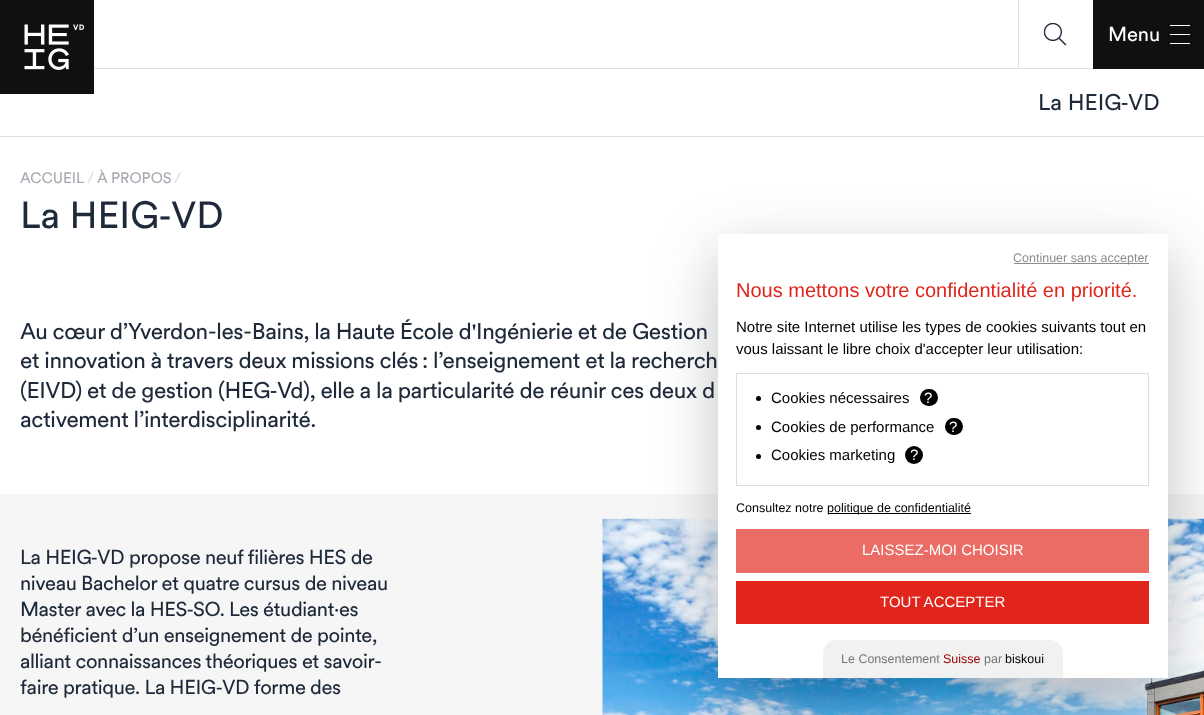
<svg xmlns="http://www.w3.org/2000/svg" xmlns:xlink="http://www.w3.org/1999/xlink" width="1204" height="715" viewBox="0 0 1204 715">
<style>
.cls-1{font:20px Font;fill:#ffffff}
.cls-2{font:22.5px Font;fill:#1e2939}
.cls-3{font:22.5px Noto Sans;fill:#1e2939}
.cls-4{font:15px Font;fill:#a5a9b0}
.cls-5{font:15px Font;fill:#dbdddf}
.cls-6{font:37.5px Font;fill:#1e2939}
.cls-7{font:37.5px Noto Sans;fill:#1e2939}
.cls-8{font:22.5px Font;letter-spacing:-0.45px;fill:#1e2939}
.cls-9{font:22.5px Noto Sans;letter-spacing:-0.45px;fill:#1e2939}
.cls-10{font:20px Font;letter-spacing:-0.4px;fill:#1e2939}
.cls-11{font:20px Noto Sans;letter-spacing:-0.4px;fill:#1e2939}
.cls-12{font:12.5px Liberation Sans;fill:#8c8c8c}
.cls-13{font:20px Liberation Sans;fill:#e1251b}
.cls-14{font:15px Liberation Sans;fill:#000000}
.cls-15{font:15px Liberation Sans;fill:#ffffff}
.cls-16{font:12.5px Liberation Sans;fill:#000000}
.cls-17{font:12.5px Liberation Sans;fill:#767676}
.cls-18{font:12.5px Liberation Sans;fill:#9c0000}
</style>
<rect width="100%" height="100%" fill="#f6f6f6"/>
<rect fill="#ffffff" x="94" y="0" width="999" height="68"/>
<rect fill="#e0e0e0" x="94" y="68" width="999" height="1"/>
<rect fill="#ffffff" x="0" y="69" width="1204" height="425"/>
<image xlink:href="image0.png" x="0" y="0" width="94" height="94"/>
<rect fill="#e0e0e0" x="1018" y="0" width="1" height="69"/>
<image xlink:href="image1.png" x="1044" y="23" width="23" height="23"/>
<rect fill="#101010" x="1093" y="0" width="111" height="69"/>
<rect fill="#ffffff" x="1170" y="34" width="20" height="1"/>
<rect fill="#ffffff" x="1170" y="25" width="20" height="1"/>
<rect fill="#ffffff" x="1170" y="43" width="20" height="1"/>
<rect fill="#e0e0e0" x="0" y="136" width="1204" height="1"/>
<image xlink:href="image2.png" x="602" y="518" width="602" height="197"/>
<rect fill="#212529" fill-opacity="0.28" filter="blur(30px)" x="718" y="254" width="450" height="444"/>
<rect fill="#ffffff" x="718" y="234" width="450" height="444"/>
<rect fill="#8c8c8c" x="1014" y="263" width="135" height="1"/>
<rect fill="none" stroke="#dddddd" x="736.5" y="373.5" width="412" height="112"/>
<circle fill="#000000" cx="758.5" cy="398.5" r="2.5"/>
<rect fill="#000000" x="920" y="389" width="18" height="17" rx="8.5"/>
<circle fill="#000000" cx="758.5" cy="427.5" r="2.5"/>
<rect fill="#000000" x="945" y="418" width="18" height="17" rx="8.5"/>
<circle fill="#000000" cx="758.5" cy="456.5" r="2.5"/>
<circle fill="#000000" cx="914" cy="455" r="9"/>
<rect fill="#000000" x="828" y="513" width="143" height="1"/>
<rect fill="#eb6c65" x="736" y="529" width="413" height="44"/>
<rect fill="#e1251b" x="736" y="581" width="413" height="43"/>
<path fill="#f1f1f1" d="M836 640H1050C1057 640 1063 646 1063 653V678H823V653C823 646 829 640 836 640Z"/>
<text class="cls-1" x="1108" y="41">Menu</text>
<text class="cls-2" x="1038" y="110">La HEIG</text>
<text class="cls-3" x="1121" y="110">‑</text>
<text class="cls-2" x="1128" y="110">VD</text>
<text class="cls-4" x="20" y="183">ACCUEIL</text>
<text class="cls-5" x="87" y="183">/</text>
<text class="cls-4" x="97" y="183">À PROPOS</text>
<text class="cls-5" x="174" y="183">/</text>
<text class="cls-6" x="20" y="228">La HEIG</text>
<text class="cls-7" x="159" y="228">‑</text>
<text class="cls-6" x="171" y="228">VD</text>
<text class="cls-8"><tspan x="20" y="339">Au cœur d’Yverdon-les-Bains, la Haute École d'Ingénierie et de Gestion</tspan><tspan x="20" y="368">et innovation à travers deux missions clés</tspan></text>
<text class="cls-8" x="422" y="368">: l’enseignement et la recherch</text>
<text class="cls-8" x="20" y="398">(EIVD) et de gestion (HEG</text>
<text class="cls-9" x="270" y="398">‑</text>
<text class="cls-8" x="277" y="398">Vd), elle a la particularité de réunir ces deux d</text>
<text class="cls-8" x="20" y="427">activement l’interdisciplinarité.</text>
<text class="cls-10" x="20" y="564">La HEIG</text>
<text class="cls-11" x="91" y="564">‑</text>
<text class="cls-10" x="97" y="564">VD propose neuf filières HES de</text>
<text class="cls-10"><tspan x="20" y="590">niveau Bachelor et quatre cursus de niveau</tspan><tspan x="20" y="616">Master avec la HES</tspan></text>
<text class="cls-11" x="187" y="616">‑</text>
<text class="cls-10" x="193" y="616">SO. Les étudiant·es</text>
<text class="cls-10"><tspan x="20" y="642">bénéficient d’un enseignement de pointe,</tspan><tspan x="20" y="668">alliant connaissances théoriques et savoir-</tspan><tspan x="20" y="694">faire pratique. La HEIG</tspan></text>
<text class="cls-11" x="216" y="694">‑</text>
<text class="cls-10" x="222" y="694">VD forme des</text>
<text class="cls-12" x="1013" y="262">Continuer sans accepter</text>
<text class="cls-13" x="736" y="297">Nous mettons votre confidentialité en priorité.</text>
<text class="cls-14"><tspan x="736" y="332">Notre site Internet utilise les types de cookies suivants tout en</tspan><tspan x="736" y="354">vous laissant le libre choix d'accepter leur utilisation:</tspan></text>
<text class="cls-14" x="771" y="403">Cookies nécessaires</text>
<text class="cls-15" x="924" y="403">?</text>
<text class="cls-14" x="771" y="432">Cookies de performance</text>
<text class="cls-15" x="949" y="432">?</text>
<text class="cls-14" x="771" y="460">Cookies marketing</text>
<text class="cls-15" x="910" y="460">?</text>
<text class="cls-16" x="736" y="512">Consultez notre</text>
<text class="cls-16" x="827" y="512">politique de confidentialité</text>
<text class="cls-15" x="862" y="555">LAISSEZ-MOI CHOISIR</text>
<text class="cls-15" x="880" y="607">TOUT ACCEPTER</text>
<text class="cls-17" x="841" y="663">Le Consentement</text>
<text class="cls-18" x="943" y="663">Suisse</text>
<text class="cls-17" x="984" y="663">par</text>
<text class="cls-16" x="1005" y="663">biskoui</text>
</svg>
